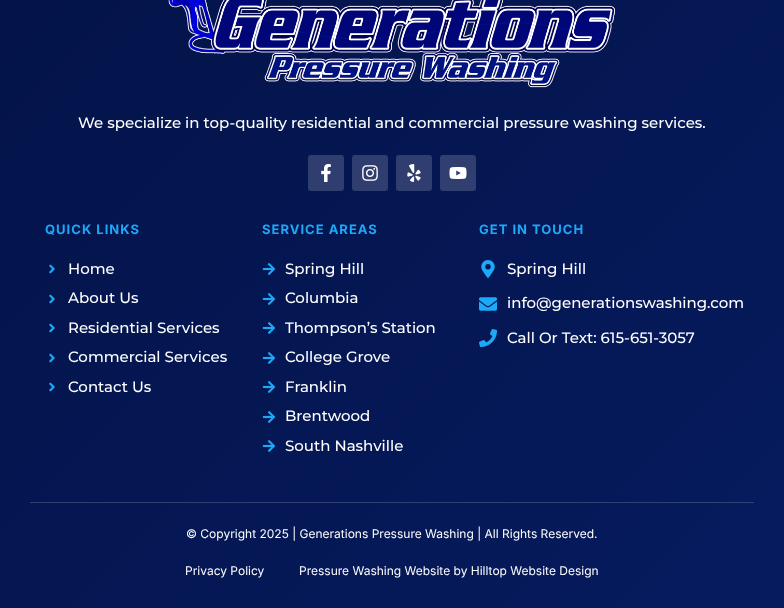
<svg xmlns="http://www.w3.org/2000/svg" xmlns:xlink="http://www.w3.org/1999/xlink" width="784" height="608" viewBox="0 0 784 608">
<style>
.cls-1{font:500 15px Montserrat;fill:#ffffff}
.cls-2{font:bold 13px Inter;letter-spacing:1px;fill:#1da8f8}
.cls-3{font:12px Inter;fill:#ffffff}
</style>
<defs>
<linearGradient id="g1" gradientUnits="userSpaceOnUse" x1="-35" y1="-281" x2="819" y2="573"><stop offset="0" stop-color="#031245"/><stop offset="1" stop-color="#061b5e"/></linearGradient>
<linearGradient id="g2" gradientUnits="userSpaceOnUse" x1="-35" y1="-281" x2="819" y2="573"><stop offset="0" stop-color="#2e3a65"/><stop offset="1" stop-color="#304279"/></linearGradient>
</defs>
<rect width="100%" height="100%" fill="#ffffff"/>
<rect fill="url(#g1)" x="0" y="0" width="784" height="608"/>
<rect fill="url(#g2)" x="30" y="502" width="724" height="1"/>
<image xlink:href="image0.png" x="168" y="0" width="447" height="88"/>
<rect fill="#2f3e6f" x="308" y="155" width="36" height="36" rx="3"/>
<image xlink:href="image1.png" x="321" y="164" width="10" height="18"/>
<rect fill="#2f3e6f" x="352" y="155" width="36" height="36" rx="3"/>
<image xlink:href="image2.png" x="362" y="165" width="16" height="16"/>
<rect fill="#303e6f" x="396" y="155" width="36" height="36" rx="3"/>
<image xlink:href="image3.png" x="407" y="164" width="14" height="18"/>
<rect fill="#303e70" x="440" y="155" width="36" height="36" rx="3"/>
<image xlink:href="image4.png" x="449" y="167" width="18" height="12"/>
<image xlink:href="image5.png" x="49" y="264" width="6" height="10"/>
<image xlink:href="image6.png" x="49" y="294" width="6" height="10"/>
<image xlink:href="image7.png" x="49" y="323" width="6" height="10"/>
<image xlink:href="image8.png" x="49" y="353" width="6" height="10"/>
<image xlink:href="image8.png" x="49" y="382" width="6" height="10"/>
<image xlink:href="image9.png" x="262" y="263" width="13" height="12"/>
<image xlink:href="image10.png" x="262" y="293" width="13" height="12"/>
<image xlink:href="image11.png" x="262" y="322" width="13" height="12"/>
<image xlink:href="image12.png" x="262" y="352" width="13" height="12"/>
<image xlink:href="image12.png" x="262" y="381" width="13" height="12"/>
<image xlink:href="image13.png" x="262" y="411" width="13" height="12"/>
<image xlink:href="image14.png" x="262" y="440" width="13" height="12"/>
<image xlink:href="image15.png" x="481" y="260" width="14" height="18"/>
<image xlink:href="image16.png" x="479" y="297" width="18" height="14"/>
<image xlink:href="image17.png" x="479" y="329" width="18" height="18"/>
<text class="cls-1" x="78" y="128">We specialize in top-quality residential and commercial pressure washing services.</text>
<text class="cls-2" x="45" y="234">QUICK LINKS</text>
<text class="cls-1"><tspan x="68" y="274">Home</tspan><tspan x="68" y="303">About Us</tspan></text>
<text class="cls-1"><tspan x="68" y="333">Residential Services</tspan><tspan x="68" y="362">Commercial Services</tspan></text>
<text class="cls-1" x="68" y="392">Contact Us</text>
<text class="cls-2" x="262" y="234">SERVICE AREAS</text>
<text class="cls-1"><tspan x="285" y="274">Spring Hill</tspan><tspan x="285" y="303">Columbia</tspan></text>
<text class="cls-1"><tspan x="285" y="333">Thompson’s Station</tspan><tspan x="285" y="362">College Grove</tspan></text>
<text class="cls-1"><tspan x="285" y="392">Franklin</tspan><tspan x="285" y="421">Brentwood</tspan></text>
<text class="cls-1" x="285" y="451">South Nashville</text>
<text class="cls-2" x="479" y="234">GET IN TOUCH</text>
<text class="cls-1" x="507" y="274">Spring Hill</text>
<text class="cls-1" x="507" y="308">info@generationswashing.com</text>
<text class="cls-1" x="507" y="343">Call Or Text: 615-651-3057</text>
<text class="cls-3" x="186" y="538">© Copyright 2025 | Generations Pressure Washing | All Rights Reserved.</text>
<text class="cls-3" x="185" y="575">Privacy Policy</text>
<text class="cls-3" x="299" y="575">Pressure Washing Website by Hilltop Website Design</text>
</svg>
